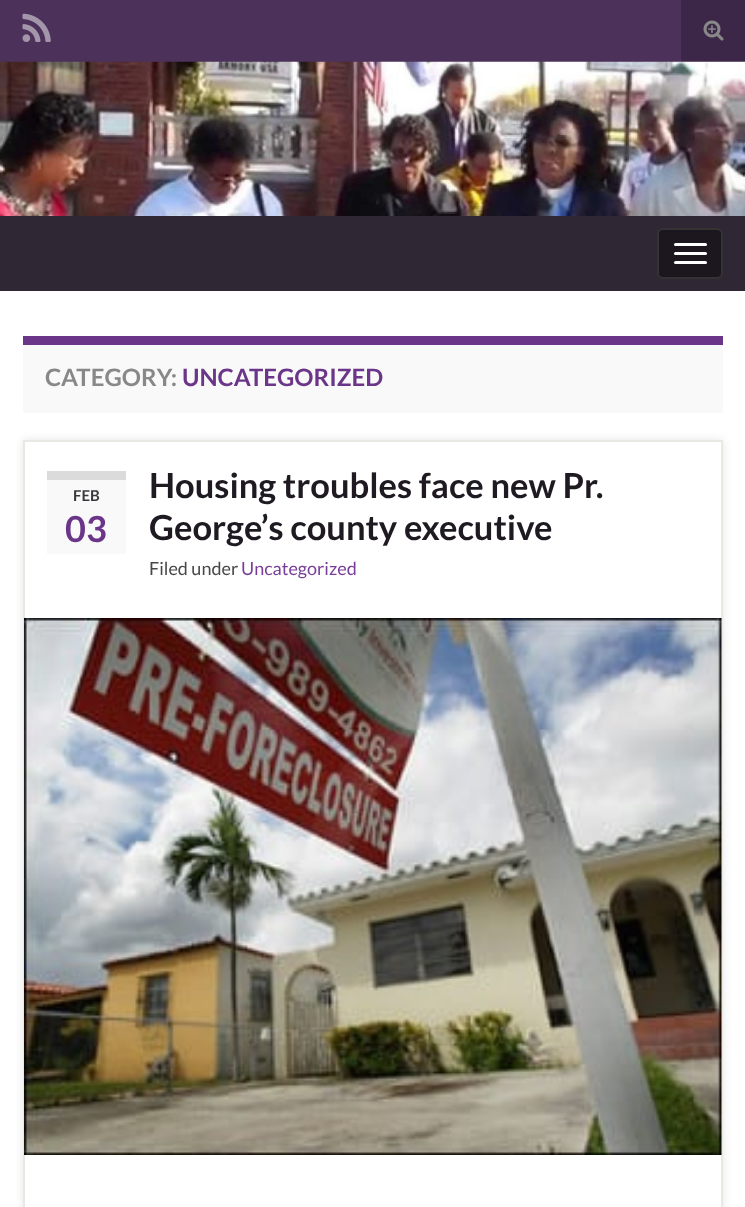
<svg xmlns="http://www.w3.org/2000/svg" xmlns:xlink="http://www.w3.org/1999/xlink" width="745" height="1207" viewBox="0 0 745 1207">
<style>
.cls-1{font:bold 24px Lato;fill:#888888}
.cls-2{font:bold 24px Lato;fill:#6b3589}
.cls-3{font:bold 15px Lato;fill:#3b383d}
.cls-4{font:bold 36px Lato;fill:#6b3589}
.cls-5{font:bold 34.5px Lato;fill:#1f1a22}
.cls-6{font:18px Lato;fill:#4a474b}
.cls-7{font:18px Lato;fill:#783d98}
</style>
<defs>
<clipPath id="clip1"><path d="M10 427H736V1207H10ZM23 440H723V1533H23Z" clip-rule="evenodd"/></clipPath>
</defs>
<rect width="100%" height="100%" fill="#ffffff"/>
<rect fill="#4c315a" x="0" y="0" width="681" height="62"/>
<image xlink:href="image0.png" x="22" y="13" width="29" height="29"/>
<rect fill="#3d2748" x="681" y="0" width="64" height="62"/>
<image xlink:href="image1.png" x="703" y="20" width="21" height="21"/>
<image xlink:href="image2.png" x="0" y="61" width="745" height="155"/>
<rect fill="#2f2733" x="0" y="216" width="745" height="75"/>
<rect fill="#1c171f" stroke="#333333" stroke-width="2" x="658" y="229" width="64" height="49" rx="5"/>
<rect fill="#ffffff" x="674" y="243" width="33" height="3" rx="1.5"/>
<rect fill="#ffffff" x="674" y="252" width="33" height="3" rx="1.5"/>
<rect fill="#ffffff" x="674" y="261" width="33" height="3" rx="1.5"/>
<rect fill="#f9f9f9" x="23" y="345" width="700" height="68"/>
<rect fill="#6b3589" x="23" y="336" width="700" height="9"/>
<g clip-path="url(#clip1)">
<rect fill="#000000" fill-opacity="0.1" filter="blur(4px)" x="23" y="440" width="700" height="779"/>
</g>
<rect fill="none" stroke="#e9e8e3" stroke-width="2" x="24" y="441" width="698" height="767"/>
<rect fill="#f9f9f9" x="47" y="480" width="79" height="74"/>
<rect fill="#dbdbdb" x="47" y="471" width="79" height="9"/>
<image xlink:href="image3.png" x="24" y="618" width="698" height="537"/>
<text class="cls-1" x="45" y="386">CATEGORY:</text>
<text class="cls-2" x="182" y="386">UNCATEGORIZED</text>
<text class="cls-3" x="73" y="501">FEB</text>
<text class="cls-4" x="65" y="542">03</text>
<text class="cls-5"><tspan x="149" y="498">Housing troubles face new Pr.</tspan><tspan x="149" y="540">George’s county executive</tspan></text>
<text class="cls-6" x="149" y="575">Filed under</text>
<text class="cls-7" x="241" y="575">Uncategorized</text>
</svg>
